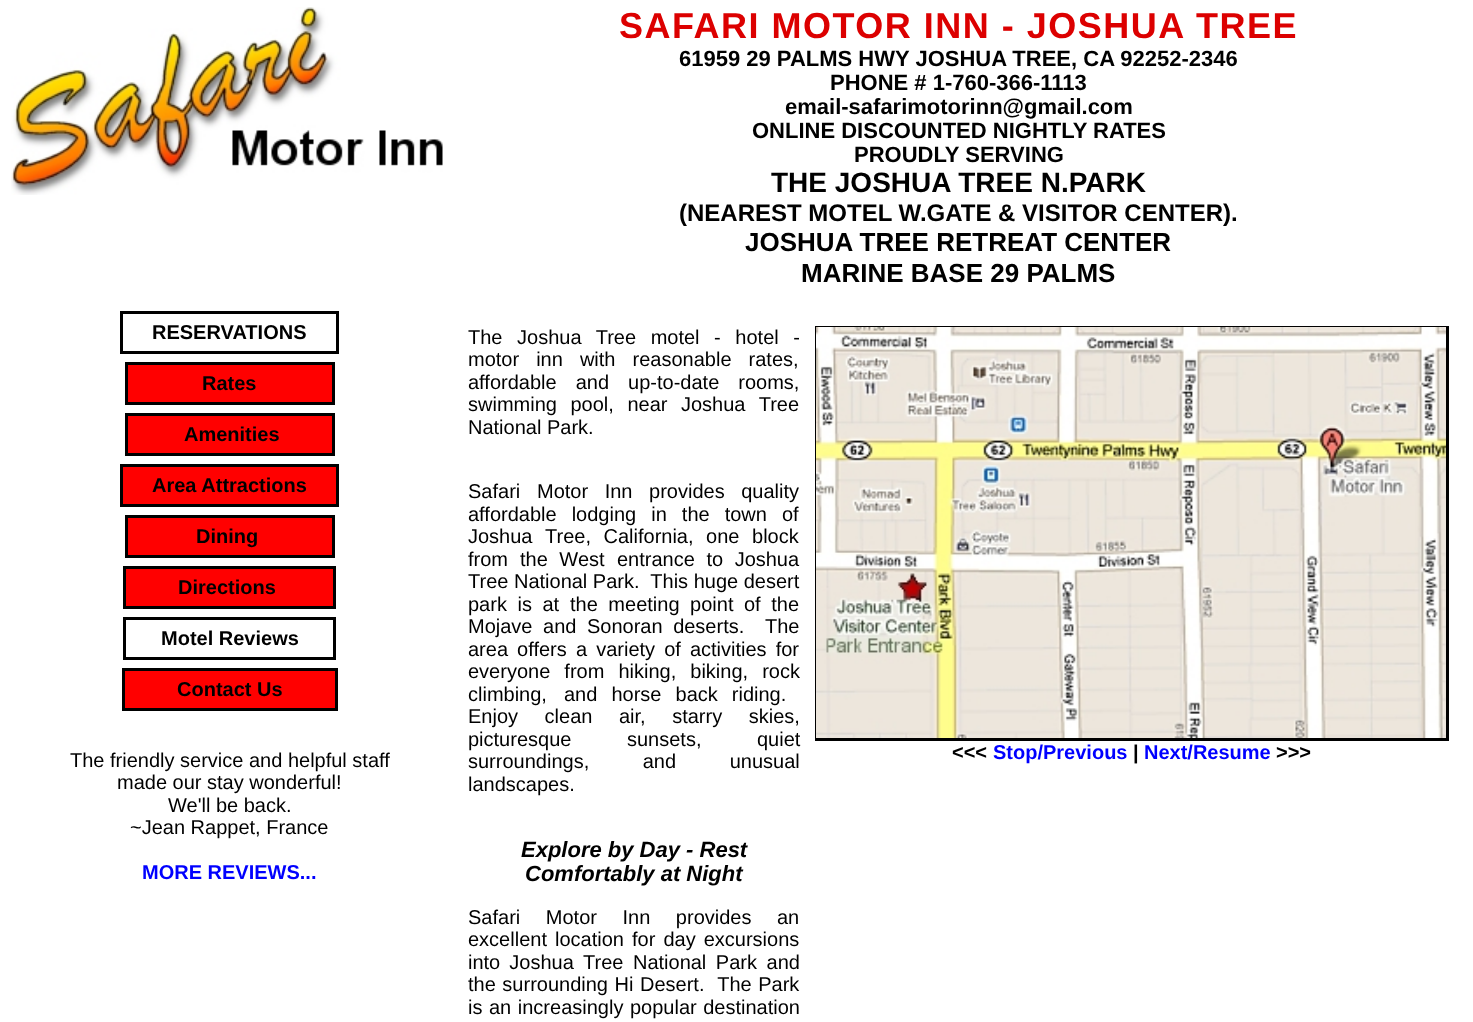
<svg xmlns="http://www.w3.org/2000/svg" xmlns:xlink="http://www.w3.org/1999/xlink" width="1473" height="1022" viewBox="0 0 1473 1022">
<style>
.cls-1{font:bold 36px Liberation Sans;letter-spacing:1.5px;fill:#dc0000}
.cls-2{font:bold 22px Liberation Sans;fill:#000000}
.cls-3{font:bold 28px Liberation Sans;fill:#000000}
.cls-4{font:bold 24px Liberation Sans;fill:#000000}
.cls-5{font:bold 26px Liberation Sans;fill:#000000}
.cls-6{font:bold 20px Liberation Sans;fill:#000000}
.cls-7{font:20px Liberation Sans;fill:#000000}
.cls-8{font:bold 20px Liberation Sans;fill:#0000ff}
.cls-9{font:italic bold 22px Liberation Sans;fill:#000000}
</style>
<rect width="100%" height="100%" fill="#ffffff"/>
<image xlink:href="image0.png" x="11" y="7" width="432" height="188"/>
<rect fill="none" stroke="#000000" stroke-width="3" x="121.5" y="312.5" width="216" height="40"/>
<rect fill="#ff0000" stroke="#000000" stroke-width="3" x="126.5" y="363.5" width="207" height="40"/>
<rect fill="#ff0000" stroke="#000000" stroke-width="3" x="126.5" y="414.5" width="207" height="40"/>
<rect fill="#ff0000" stroke="#000000" stroke-width="3" x="121.5" y="465.5" width="216" height="40"/>
<rect fill="#ff0000" stroke="#000000" stroke-width="3" x="126.5" y="516.5" width="207" height="40"/>
<rect fill="#ff0000" stroke="#000000" stroke-width="3" x="124.5" y="567.5" width="210" height="40"/>
<rect fill="none" stroke="#000000" stroke-width="3" x="124.5" y="618.5" width="210" height="40"/>
<rect fill="#ff0000" stroke="#000000" stroke-width="3" x="123.5" y="669.5" width="213" height="40"/>
<rect fill="#000000" x="815" y="326" width="634" height="1"/>
<rect fill="#000000" x="1446" y="326" width="3" height="415"/>
<rect fill="#000000" x="815" y="738" width="634" height="3"/>
<rect fill="#000000" x="815" y="326" width="2" height="415"/>
<image xlink:href="image1.png" x="816" y="327" width="630" height="411"/>
<text class="cls-1" x="619" y="38">SAFARI MOTOR INN - JOSHUA TREE</text>
<text class="cls-2" x="679" y="66">61959 29 PALMS HWY JOSHUA TREE, CA 92252-2346</text>
<text class="cls-2" x="830" y="90">PHONE # 1-760-366-1113</text>
<text class="cls-2" x="785" y="114">email-safarimotorinn@gmail.com</text>
<text class="cls-2" x="752" y="138">ONLINE DISCOUNTED NIGHTLY RATES</text>
<text class="cls-2" x="854" y="162">PROUDLY SERVING</text>
<text class="cls-3" x="771" y="192">THE JOSHUA TREE N.PARK</text>
<text class="cls-4" x="679" y="221">(NEAREST MOTEL W.GATE &amp; VISITOR CENTER).</text>
<text class="cls-5" x="745" y="251">JOSHUA TREE RETREAT CENTER</text>
<text class="cls-5" x="801" y="282">MARINE BASE 29 PALMS</text>
<text class="cls-6" x="152" y="339">RESERVATIONS</text>
<text class="cls-6" x="202" y="390">Rates</text>
<text class="cls-6" x="184" y="441">Amenities</text>
<text class="cls-6" x="152" y="492">Area Attractions</text>
<text class="cls-6" x="196" y="543">Dining</text>
<text class="cls-6" x="178" y="594">Directions</text>
<text class="cls-6" x="161" y="645">Motel Reviews</text>
<text class="cls-6" x="177" y="696">Contact Us</text>
<text class="cls-7" x="70" y="767">The friendly service and helpful staff</text>
<text class="cls-7" x="117" y="789">made our stay wonderful!</text>
<text class="cls-7" x="168" y="812">We'll be back.</text>
<text class="cls-7" x="130" y="834">~Jean Rappet, France</text>
<text class="cls-8" x="142" y="879">MORE REVIEWS...</text>
<text class="cls-7"><tspan x="468" y="344" word-spacing="9">The Joshua Tree motel - hotel -</tspan><tspan x="468" y="366" word-spacing="11.5">motor inn with reasonable rates,</tspan><tspan x="468" y="389" word-spacing="13.5">affordable and up-to-date rooms,</tspan><tspan x="468" y="411" word-spacing="8">swimming pool, near Joshua Tree</tspan><tspan x="468" y="434">National Park.</tspan></text>
<text class="cls-7" x="468" y="498">Safari</text>
<text class="cls-7" x="537" y="498" word-spacing="11">Motor Inn provides quality</text>
<text class="cls-7"><tspan x="468" y="521" word-spacing="9.5">affordable lodging in the town of</tspan><tspan x="468" y="543">Joshua</tspan></text>
<text class="cls-7" x="545" y="543" word-spacing="7">Tree, California, one block</text>
<text class="cls-7" x="468" y="566">from</text>
<text class="cls-7" x="520" y="566" word-spacing="6">the West</text>
<text class="cls-7" x="617" y="566" word-spacing="6">entrance to Joshua</text>
<text class="cls-7" xml:space="preserve"><tspan x="468" y="588">Tree National Park.  This huge desert</tspan><tspan x="468" y="611" word-spacing="5">park is at</tspan></text>
<text class="cls-7" x="570" y="611" word-spacing="5">the meeting point of the</text>
<text class="cls-7" xml:space="preserve"><tspan x="468" y="633" word-spacing="5">Mojave and Sonoran deserts.  The</tspan><tspan x="468" y="656" word-spacing="3.5">area offers</tspan></text>
<text class="cls-7" x="576" y="656" word-spacing="3.5">a variety of activities for</text>
<text class="cls-7"><tspan x="468" y="678" word-spacing="8.5">everyone from hiking, biking, rock</tspan><tspan x="468" y="701">climbing,</tspan></text>
<text class="cls-7" x="564" y="701" word-spacing="8.5">and horse back riding.</text>
<text class="cls-7"><tspan x="468" y="723" word-spacing="21">Enjoy clean air, starry skies,</tspan><tspan x="468" y="746" word-spacing="50">picturesque sunsets, quiet</tspan><tspan x="468" y="768" word-spacing="48">surroundings, and unusual</tspan><tspan x="468" y="791">landscapes.</tspan></text>
<text class="cls-9" x="521" y="857">Explore by Day - Rest</text>
<text class="cls-9" x="525" y="881">Comfortably at Night</text>
<text class="cls-7"><tspan x="468" y="924" word-spacing="20">Safari Motor Inn provides an</tspan><tspan x="468" y="946" word-spacing="2.5">excellent location for day excursions</tspan><tspan x="468" y="969" word-spacing="3.5">into Joshua</tspan></text>
<text class="cls-7" x="583" y="969" word-spacing="4">Tree National Park and</text>
<text class="cls-7" xml:space="preserve"><tspan x="468" y="991" word-spacing="1">the surrounding Hi Desert.  The Park</tspan><tspan x="468" y="1014">is</tspan></text>
<text class="cls-7" x="489" y="1014" word-spacing="1">an increasingly popular destination</text>
<text class="cls-6" x="952" y="759">&lt;&lt;&lt;</text>
<text class="cls-8" x="993" y="759">Stop/Previous</text>
<text class="cls-6" x="1133" y="759">|</text>
<text class="cls-8" x="1144" y="759">Next/Resume</text>
<text class="cls-6" x="1276" y="759">&gt;&gt;&gt;</text>
</svg>
